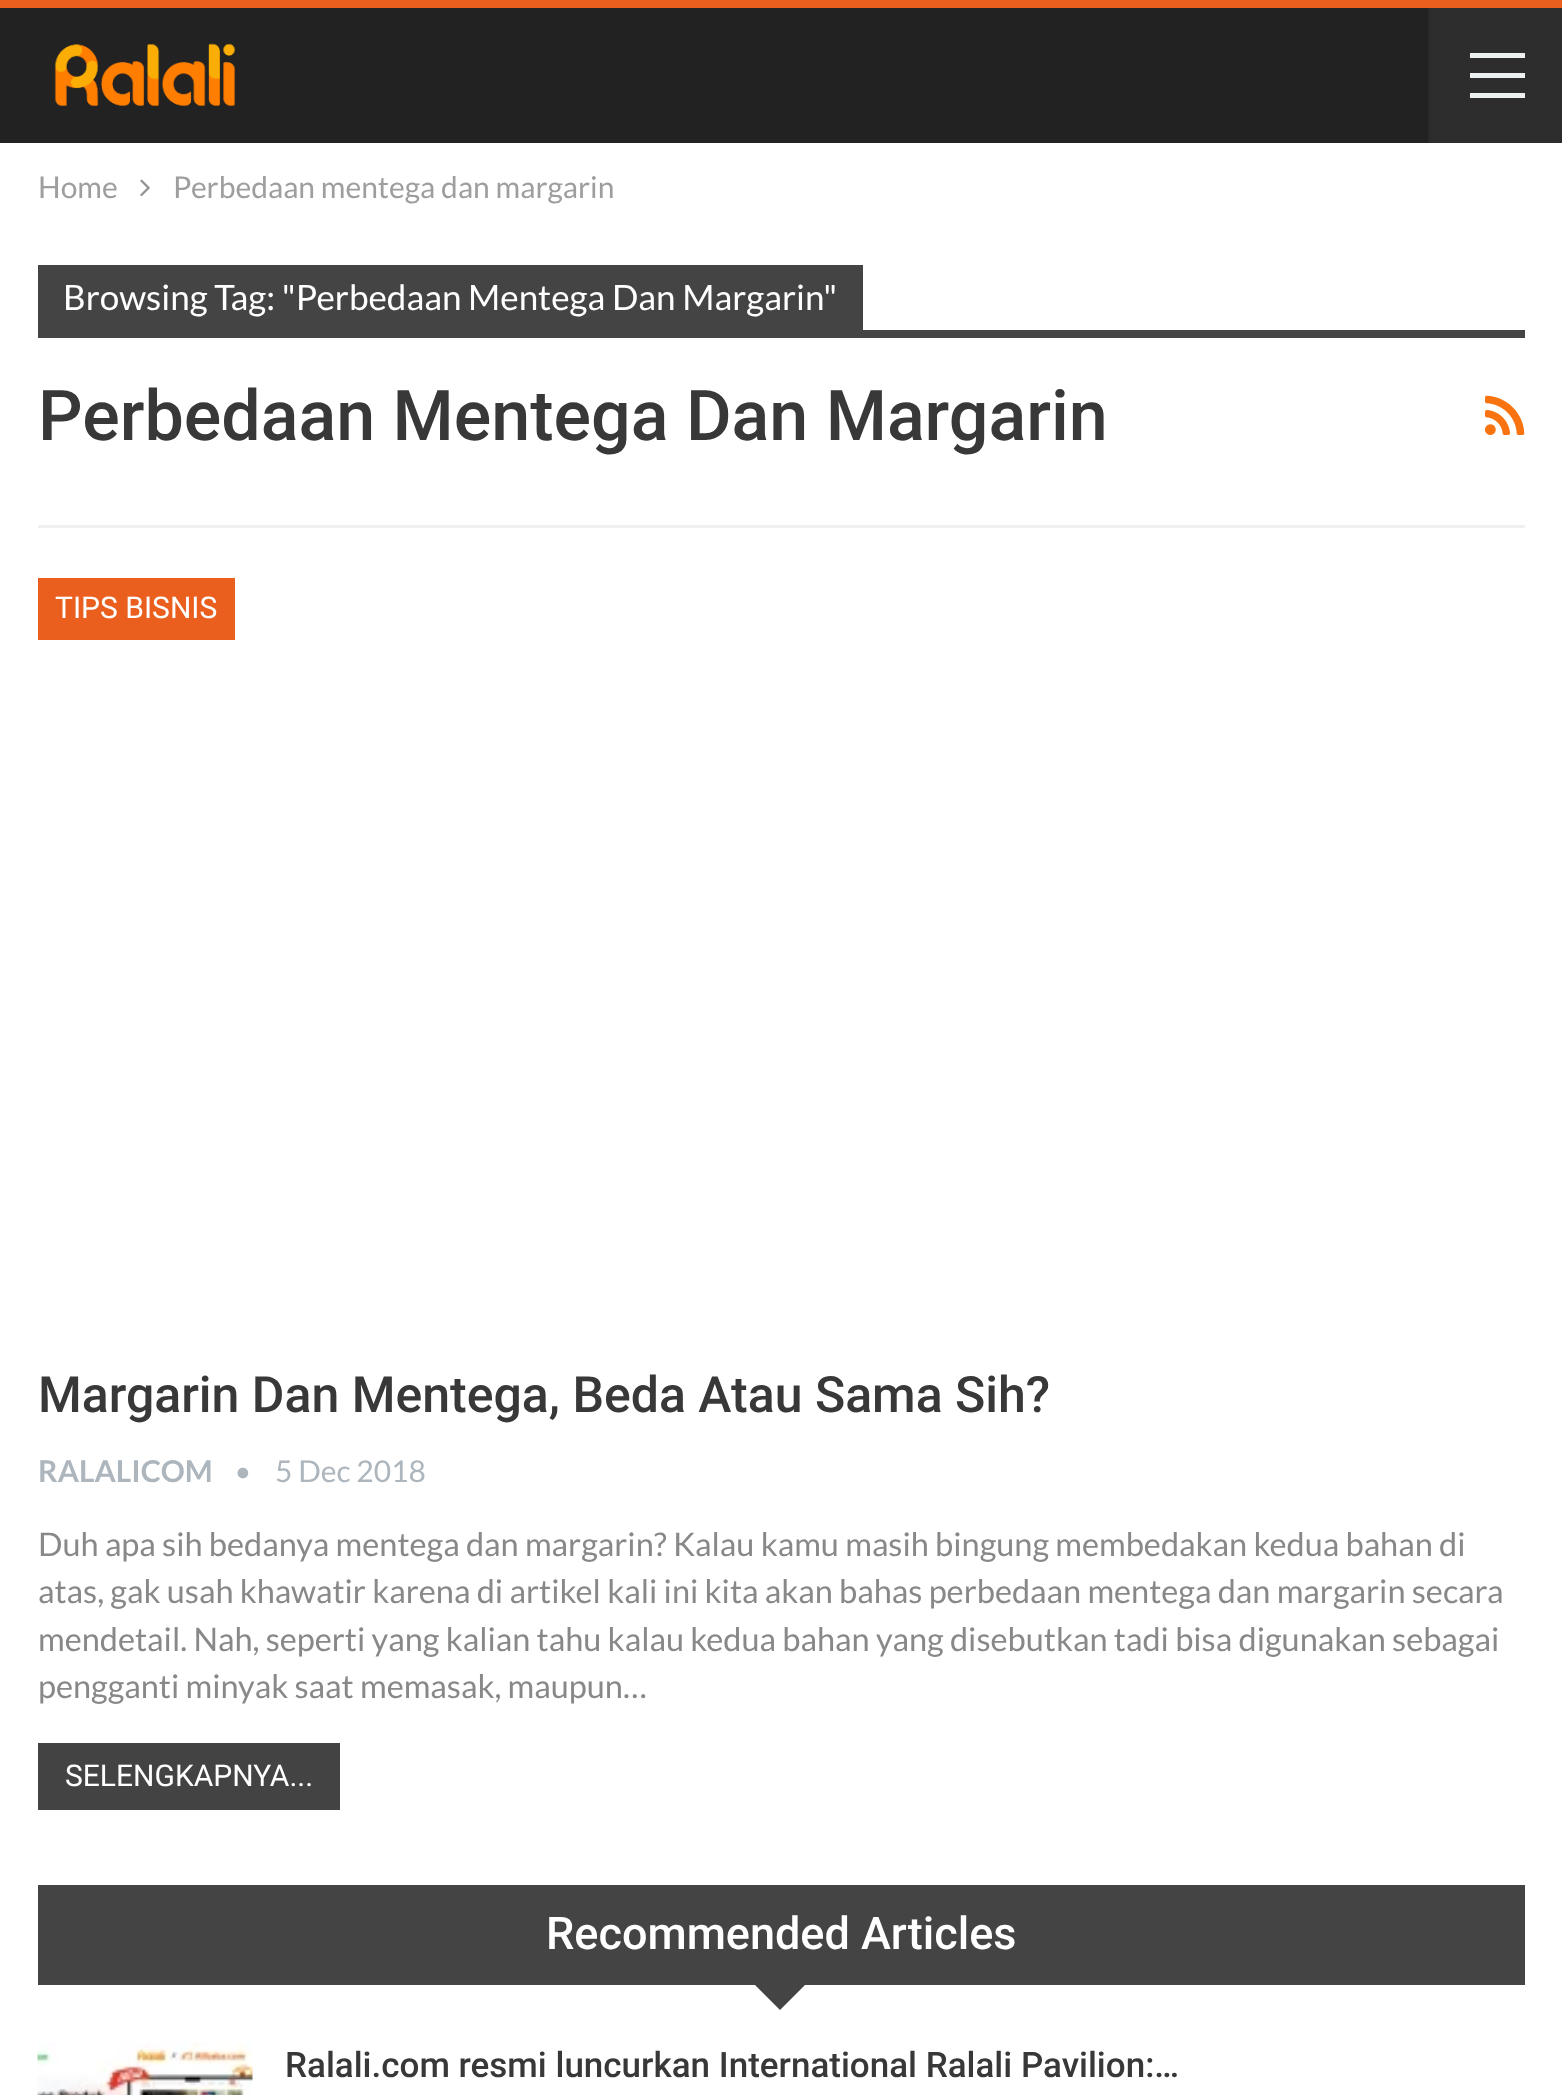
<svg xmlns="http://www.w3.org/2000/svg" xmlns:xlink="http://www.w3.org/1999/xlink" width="1562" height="2095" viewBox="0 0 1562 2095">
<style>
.cls-1{font:30px Lato;fill:#9e9e9e}
.cls-2{font:35px Lato;fill:#ffffff}
.cls-3{font:500 70px Roboto;fill:#383838}
.cls-4{font:30px Roboto;fill:#ffffff}
.cls-5{font:500 50px Roboto;fill:#383838}
.cls-6{font:bold 30px Lato;fill:#adb5bd}
.cls-7{font:30px Lato;fill:#adb5bd}
.cls-8{font:32.5px Lato;fill:#888888}
.cls-9{font:500 45px Roboto;fill:#ffffff}
.cls-10{font:500 35px Roboto;fill:#383838}
</style>
<rect width="100%" height="100%" fill="#ea5f1e"/>
<rect fill="#ffffff" x="0" y="143" width="1562" height="1952"/>
<rect fill="#222222" x="0" y="8" width="1428" height="135"/>
<image xlink:href="image0.png" x="54" y="43" width="182" height="64"/>
<rect fill="#2d2d2d" x="1431" y="8" width="131" height="135"/>
<rect fill="#2a2a2a" x="1428" y="8" width="3" height="135"/>
<rect fill="#ecf0f1" x="1470" y="73" width="55" height="5"/>
<rect fill="#ecf0f1" x="1470" y="53" width="55" height="5"/>
<rect fill="#ecf0f1" x="1470" y="93" width="55" height="5"/>
<image xlink:href="image1.png" x="140" y="179" width="10" height="18"/>
<rect fill="#f0f0f0" x="38" y="525" width="1487" height="3"/>
<rect fill="#444444" x="38" y="265" width="825" height="65"/>
<rect fill="#444444" x="38" y="330" width="1487" height="8"/>
<image xlink:href="image2.png" x="1485" y="395" width="40" height="40"/>
<rect fill="#ea5f1e" x="38" y="578" width="197" height="62"/>
<image xlink:href="image3.png" x="237" y="1467" width="12" height="12"/>
<rect fill="#434343" x="38" y="1743" width="302" height="67"/>
<rect fill="#444444" x="38" y="1885" width="1487" height="100"/>
<path fill="#444444" d="M755 1985H805L780 2010Z"/>
<image xlink:href="image4.png" x="37" y="2042" width="216" height="53"/>
<text class="cls-1" x="38" y="198">Home</text>
<text class="cls-1" x="173" y="198">Perbedaan mentega dan margarin</text>
<text class="cls-2" x="63" y="310">Browsing Tag: "Perbedaan Mentega Dan Margarin"</text>
<text class="cls-3" x="38" y="440">Perbedaan Mentega Dan Margarin</text>
<text class="cls-4" x="55" y="618">TIPS BISNIS</text>
<text class="cls-5" x="38" y="1412">Margarin Dan Mentega, Beda Atau Sama Sih?</text>
<text class="cls-6" x="38" y="1482">RALALICOM</text>
<text class="cls-7" x="275" y="1482">5 Dec 2018</text>
<text class="cls-8"><tspan x="38" y="1556">Duh apa sih bedanya mentega dan margarin? Kalau kamu masih bingung membedakan kedua bahan di</tspan><tspan x="38" y="1603">atas, gak usah khawatir karena di artikel kali ini kita akan bahas perbedaan mentega dan margarin secara</tspan><tspan x="38" y="1651">mendetail. Nah, seperti yang kalian tahu kalau kedua bahan yang disebutkan tadi bisa digunakan sebagai</tspan><tspan x="38" y="1698">pengganti minyak saat memasak, maupun…</tspan></text>
<text class="cls-4" x="65" y="1786">SELENGKAPNYA...</text>
<text class="cls-9" x="546" y="1949">Recommended Articles</text>
<text class="cls-10" x="285" y="2077">Ralali.com resmi luncurkan International Ralali Pavilion:…</text>
</svg>
